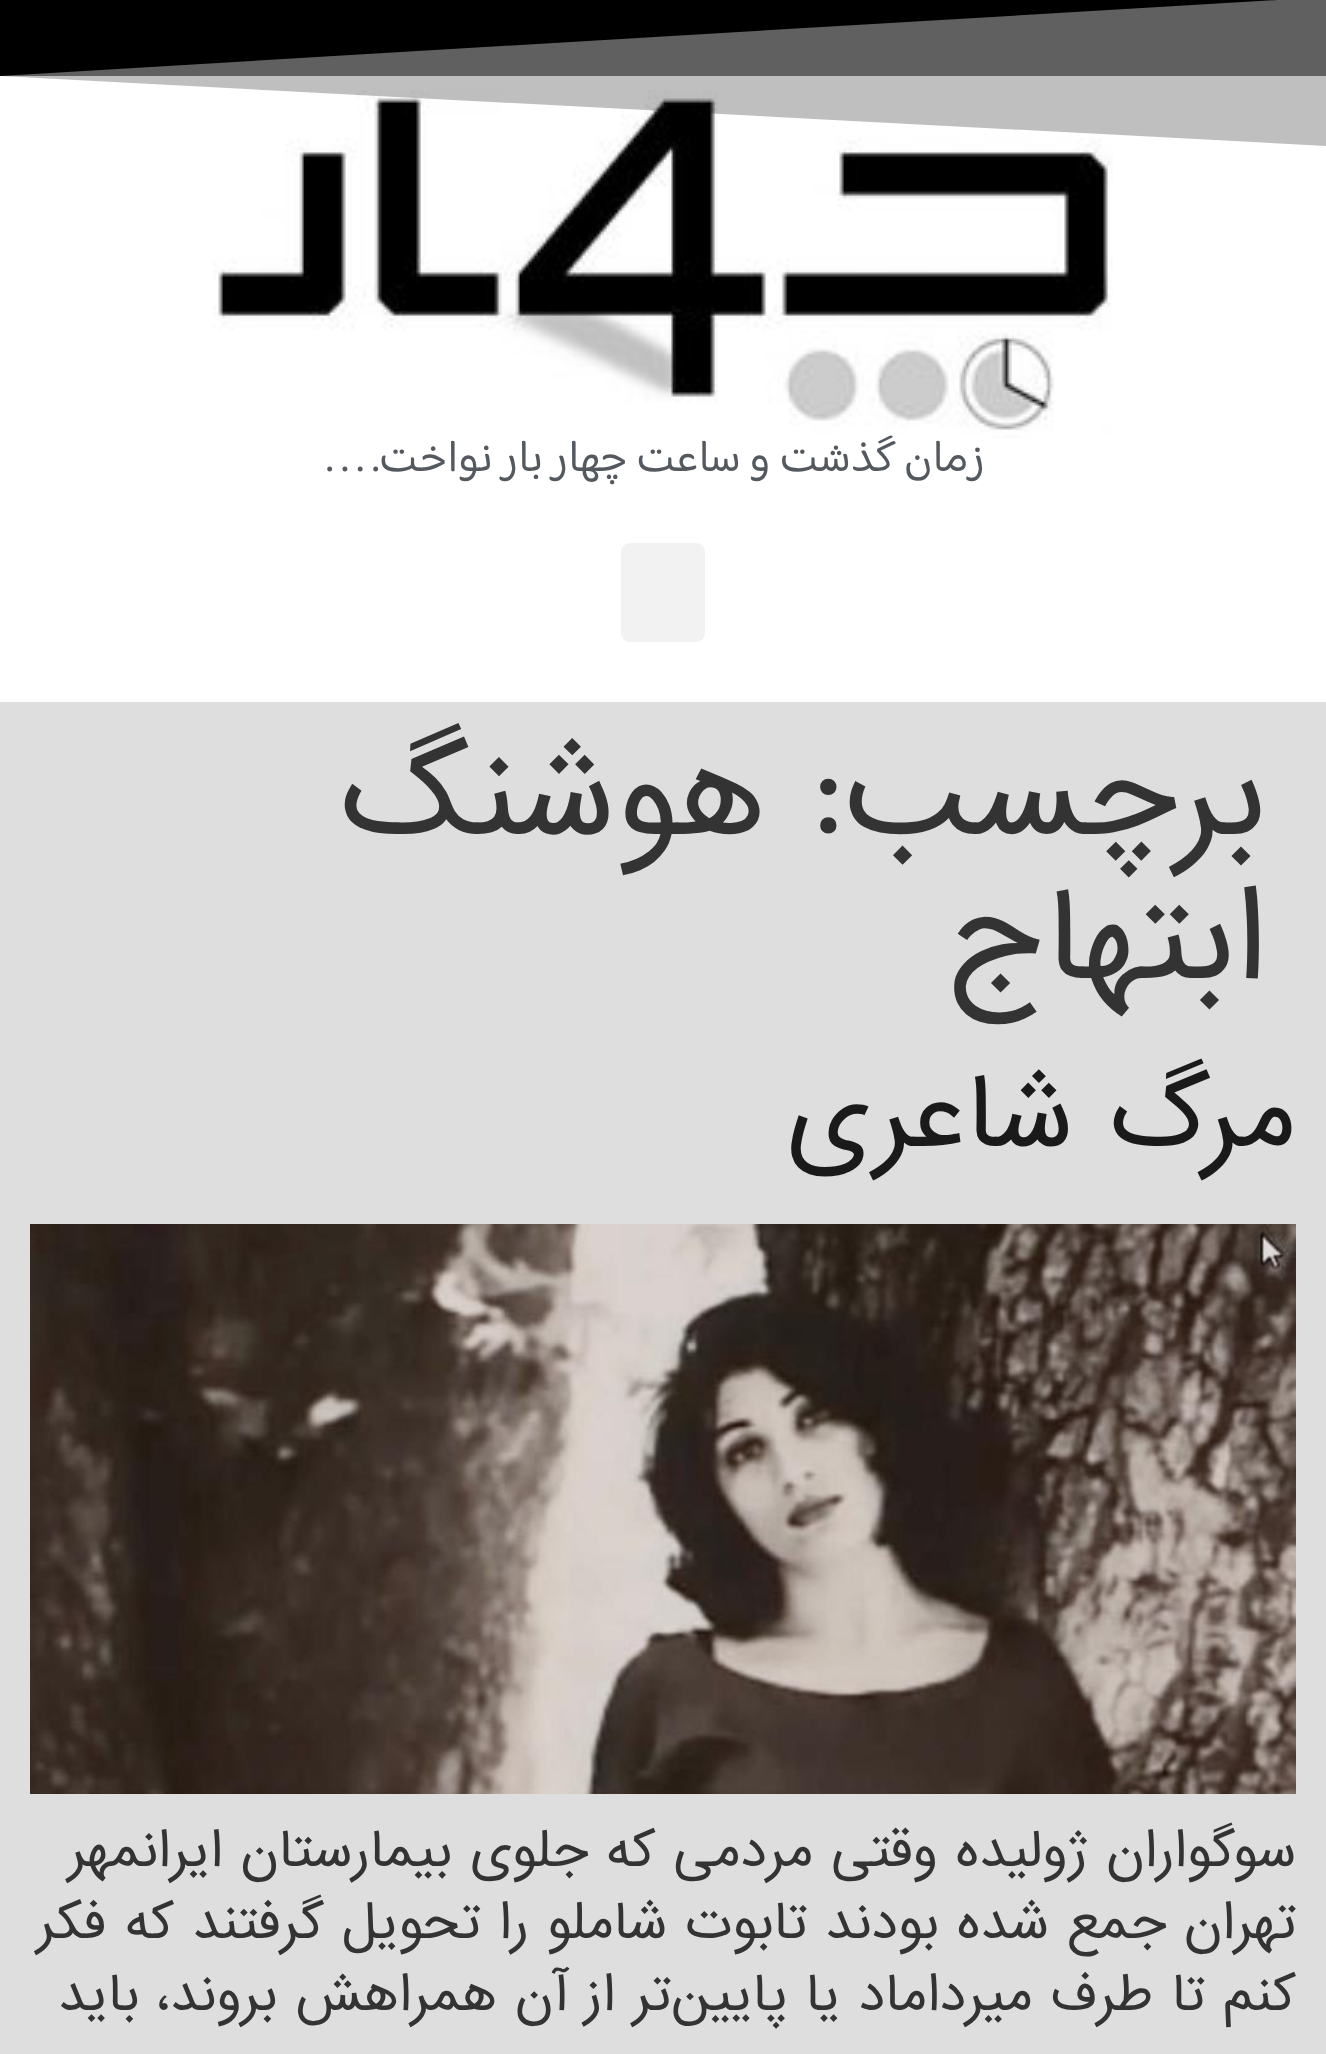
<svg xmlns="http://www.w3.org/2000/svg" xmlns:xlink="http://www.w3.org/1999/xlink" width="1326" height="2054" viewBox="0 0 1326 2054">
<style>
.cls-1{font:45px 'Baloo Bhaijaan 2';direction:rtl;fill:#54595f}
.cls-2{font:120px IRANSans;direction:rtl;fill:#333333}
.cls-3{font:96px IRANSans;direction:rtl;fill:#1a1a1a}
.cls-4{font:48px IRANSans;direction:rtl;fill:#333333}
</style>
<rect width="100%" height="100%" fill="#dedede"/>
<rect fill="#ffffff" x="0" y="76" width="1326" height="626"/>
<rect fill="#808080" x="0" y="0" width="1326" height="76"/>
<path fill="#000000" d="M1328-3H-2V76Z"/>
<image xlink:href="image0.png" x="213" y="90" width="900" height="348"/>
<path fill="#000000" fill-opacity="0.25" d="M-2-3H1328V146L-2 76Z"/>
<rect fill="#f2f2f2" x="621" y="543" width="84" height="99" rx="9"/>
<image xlink:href="image1.png" x="30" y="1224" width="1266" height="570"/>
<text class="cls-1" x="985" y="471">زمان گذشت و ساعت چهار بار نواخت. . . .</text>
<text class="cls-2" x="1266" y="834">برچسب:</text>
<text class="cls-2" x="766" y="834">هوشنگ</text>
<text class="cls-2" x="1266" y="978">ابتهاج</text>
<text class="cls-3" x="1296" y="1146">مرگ شاعری</text>
<text class="cls-4"><tspan x="1296" y="1866">سوگواران ژولیده وقتی مردمی که جلوی بیمارستان ایرانمهر</tspan><tspan x="1296" y="1938">تهران جمع شده بودند تابوت شاملو را تحویل گرفتند که فکر</tspan><tspan x="1296" y="2010">کنم تا طرف میرداماد یا پایین‌تر از آن همراهش بروند، باید</tspan></text>
</svg>
